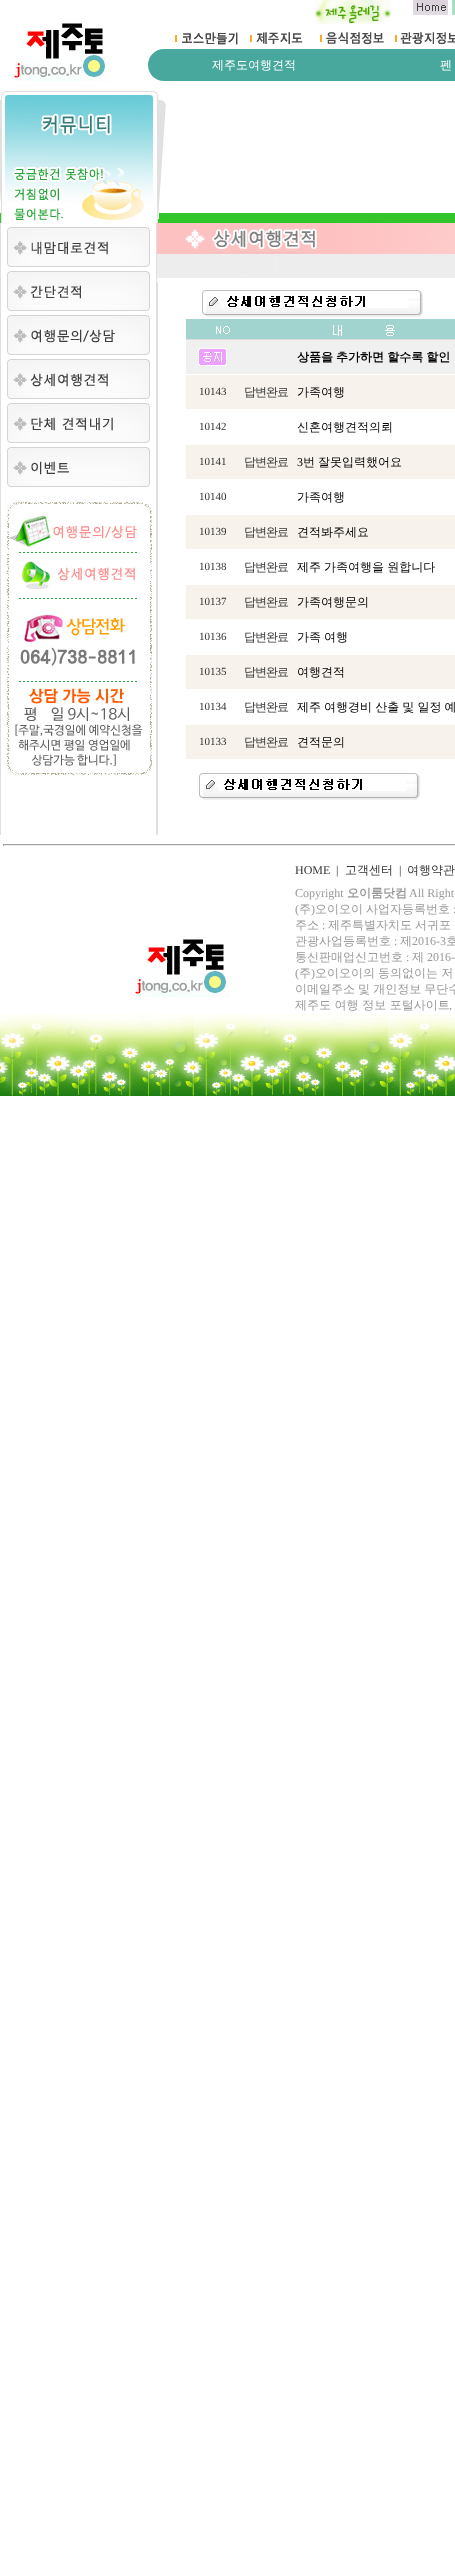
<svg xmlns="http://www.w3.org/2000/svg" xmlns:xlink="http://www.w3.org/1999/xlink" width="455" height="2558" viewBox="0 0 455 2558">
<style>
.cls-1{font:500 12px WenQuanYi Zen Hei;fill:#ffffff}
.cls-2{font:bold 12px WenQuanYi Zen Hei;fill:#000000}
.cls-3{font:11px Liberation Serif;fill:#333333}
.cls-4{font:500 12px WenQuanYi Zen Hei;letter-spacing:-1px;fill:#333333}
.cls-5{font:500 12px WenQuanYi Zen Hei;fill:#000000}
.cls-6{font:12px Liberation Serif;fill:#000000}
.cls-7{font:12px Liberation Serif;fill:#333333}
.cls-8{font:500 12px WenQuanYi Zen Hei;fill:#333333}
.cls-9{font:12px Liberation Serif;fill:#999999}
.cls-10{font:bold 12px WenQuanYi Zen Hei;fill:#999999}
.cls-11{font:500 12px WenQuanYi Zen Hei;fill:#999999}
</style>
<rect width="100%" height="100%" fill="#ffffff"/>
<image xlink:href="image0.png" x="11" y="23" width="98" height="58"/>
<image xlink:href="image1.png" x="315" y="0" width="76" height="24"/>
<image xlink:href="image2.png" x="413" y="0" width="35" height="15"/>
<image xlink:href="image3.png" x="452" y="0" width="3" height="15"/>
<image xlink:href="image4.png" x="173" y="32" width="65" height="13"/>
<image xlink:href="image5.png" x="248" y="32" width="55" height="12"/>
<image xlink:href="image6.png" x="318" y="32" width="66" height="13"/>
<image xlink:href="image7.png" x="395" y="32" width="60" height="13"/>
<path fill="#48a89d" d="M164 49H360V81H164C155 81 148 74 148 65C148 56 155 49 164 49Z"/>
<rect fill="#48a89d" x="360" y="49" width="95" height="32"/>
<rect fill="#32c62a" x="0" y="213" width="455" height="10"/>
<rect fill="#e0dedf" x="156" y="223" width="1" height="612"/>
<rect fill="#e0dedf" x="0" y="223" width="1" height="612"/>
<image xlink:href="image8.png" x="0" y="91" width="166" height="132"/>
<image xlink:href="image9.png" x="7" y="227" width="143" height="40"/>
<image xlink:href="image10.png" x="7" y="271" width="143" height="40"/>
<image xlink:href="image11.png" x="7" y="315" width="143" height="40"/>
<image xlink:href="image12.png" x="7" y="359" width="143" height="40"/>
<image xlink:href="image13.png" x="7" y="403" width="143" height="40"/>
<image xlink:href="image14.png" x="7" y="447" width="143" height="40"/>
<image xlink:href="image15.png" x="6" y="501" width="146" height="274"/>
<image xlink:href="image16.png" x="157" y="223" width="298" height="31"/>
<image xlink:href="image17.png" x="157" y="254" width="298" height="24"/>
<rect fill="#e0dedf" x="157" y="282" width="1" height="553"/>
<image xlink:href="image18.png" x="202" y="290" width="221" height="27"/>
<rect fill="#a1d4cf" x="186" y="319" width="269" height="20"/>
<image xlink:href="image19.png" x="216" y="325" width="14" height="10"/>
<image xlink:href="image20.png" x="333" y="325" width="62" height="11"/>
<rect fill="#dddddd" x="186" y="339" width="269" height="1"/>
<rect fill="#f0f0f0" x="186" y="340" width="269" height="34"/>
<image xlink:href="image21.png" x="198" y="348" width="29" height="18"/>
<rect fill="#f7f2ec" x="186" y="375" width="269" height="34"/>
<rect fill="#f7f2ec" x="186" y="445" width="269" height="34"/>
<rect fill="#f7f2ec" x="186" y="515" width="269" height="34"/>
<rect fill="#f7f2ec" x="186" y="585" width="269" height="34"/>
<rect fill="#f7f2ec" x="186" y="655" width="269" height="34"/>
<rect fill="#f7f2ec" x="186" y="725" width="269" height="34"/>
<image xlink:href="image18.png" x="199" y="773" width="221" height="27"/>
<rect fill="#9f9f9f" x="3" y="844" width="452" height="1"/>
<rect fill="#eeeeee" x="3" y="845" width="452" height="1"/>
<rect fill="#9f9f9f" x="3" y="844" width="1" height="2"/>
<image xlink:href="image0.png" x="132" y="939" width="98" height="58"/>
<image xlink:href="image22.png" x="0" y="1013" width="455" height="83"/>
<text class="cls-1" x="212" y="69">제주도여행견적</text>
<text class="cls-1" x="440" y="69">펜</text>
<text class="cls-2" x="297" y="361" word-spacing="-0.5">상품을 추가하면 할수록 할인</text>
<text class="cls-3" x="199" y="395">10143</text>
<text class="cls-4" x="244" y="396">답변완료</text>
<text class="cls-5" x="297" y="396">가족여행</text>
<text class="cls-3" x="199" y="430">10142</text>
<text class="cls-5" x="297" y="431">신혼여행견적의뢰</text>
<text class="cls-3" x="199" y="465">10141</text>
<text class="cls-4" x="244" y="466">답변완료</text>
<text class="cls-6" x="297" y="466">3</text>
<text class="cls-5" x="303" y="466" word-spacing="-0.5">번 잘못입력했어요</text>
<text class="cls-3" x="199" y="500">10140</text>
<text class="cls-5" x="297" y="501">가족여행</text>
<text class="cls-3" x="199" y="535">10139</text>
<text class="cls-4" x="244" y="536">답변완료</text>
<text class="cls-5" x="297" y="536">견적봐주세요</text>
<text class="cls-3" x="199" y="570">10138</text>
<text class="cls-4" x="244" y="571">답변완료</text>
<text class="cls-5" x="297" y="571" word-spacing="-0.5">제주 가족여행을 원합니다</text>
<text class="cls-3" x="199" y="605">10137</text>
<text class="cls-4" x="244" y="606">답변완료</text>
<text class="cls-5" x="297" y="606">가족여행문의</text>
<text class="cls-3" x="199" y="640">10136</text>
<text class="cls-4" x="244" y="641">답변완료</text>
<text class="cls-5" x="297" y="641" word-spacing="-0.5">가족 여행</text>
<text class="cls-3" x="199" y="675">10135</text>
<text class="cls-4" x="244" y="676">답변완료</text>
<text class="cls-5" x="297" y="676">여행견적</text>
<text class="cls-3" x="199" y="710">10134</text>
<text class="cls-4" x="244" y="711">답변완료</text>
<text class="cls-5" x="297" y="711" word-spacing="-0.5">제주 여행경비 산출 및 일정 예</text>
<text class="cls-3" x="199" y="745">10133</text>
<text class="cls-4" x="244" y="746">답변완료</text>
<text class="cls-5" x="297" y="746">견적문의</text>
<text class="cls-7" x="295" y="874">HOME</text>
<text class="cls-7" x="336" y="874">|</text>
<text class="cls-8" x="345" y="874">고객센터</text>
<text class="cls-7" x="399" y="874">|</text>
<text class="cls-8" x="407" y="874">여행약관</text>
<text class="cls-9" x="295" y="897">Copyright</text>
<text class="cls-10" x="347" y="897">오이룸닷컴</text>
<text class="cls-9" x="409" y="897">All Right</text>
<text class="cls-9" x="295" y="913">(</text>
<text class="cls-11" x="299" y="913">주</text>
<text class="cls-9" x="311" y="913">)</text>
<text class="cls-11" x="315" y="913">오이오이</text>
<text class="cls-11" x="366" y="913">사업자등록번호</text>
<text class="cls-9" x="453" y="913">:</text>
<text class="cls-11" x="295" y="929">주소</text>
<text class="cls-9" x="322" y="929">:</text>
<text class="cls-11" x="328" y="929">제주특별자치도</text>
<text class="cls-11" x="415" y="929">서귀포</text>
<text class="cls-11" x="295" y="945">관광사업등록번호</text>
<text class="cls-9" x="394" y="945">:</text>
<text class="cls-11" x="400" y="945">제</text>
<text class="cls-9" x="412" y="945">2016-3</text>
<text class="cls-11" x="446" y="945">호</text>
<text class="cls-11" x="295" y="961">통신판매업신고번호</text>
<text class="cls-9" x="406" y="961">:</text>
<text class="cls-11" x="412" y="961">제</text>
<text class="cls-9" x="427" y="961">2016-</text>
<text class="cls-9" x="295" y="977">(</text>
<text class="cls-11" x="299" y="977">주</text>
<text class="cls-9" x="311" y="977">)</text>
<text class="cls-11" x="315" y="977" word-spacing="-0.5">오이오이의 동의없이는 저</text>
<text class="cls-11"><tspan x="295" y="993" word-spacing="-0.5">이메일주소 및 개인정보 무단수</tspan><tspan x="295" y="1009">제주도 여행 정보 포털사이트</tspan></text>
<text class="cls-9" x="449" y="1009">,</text>
</svg>
